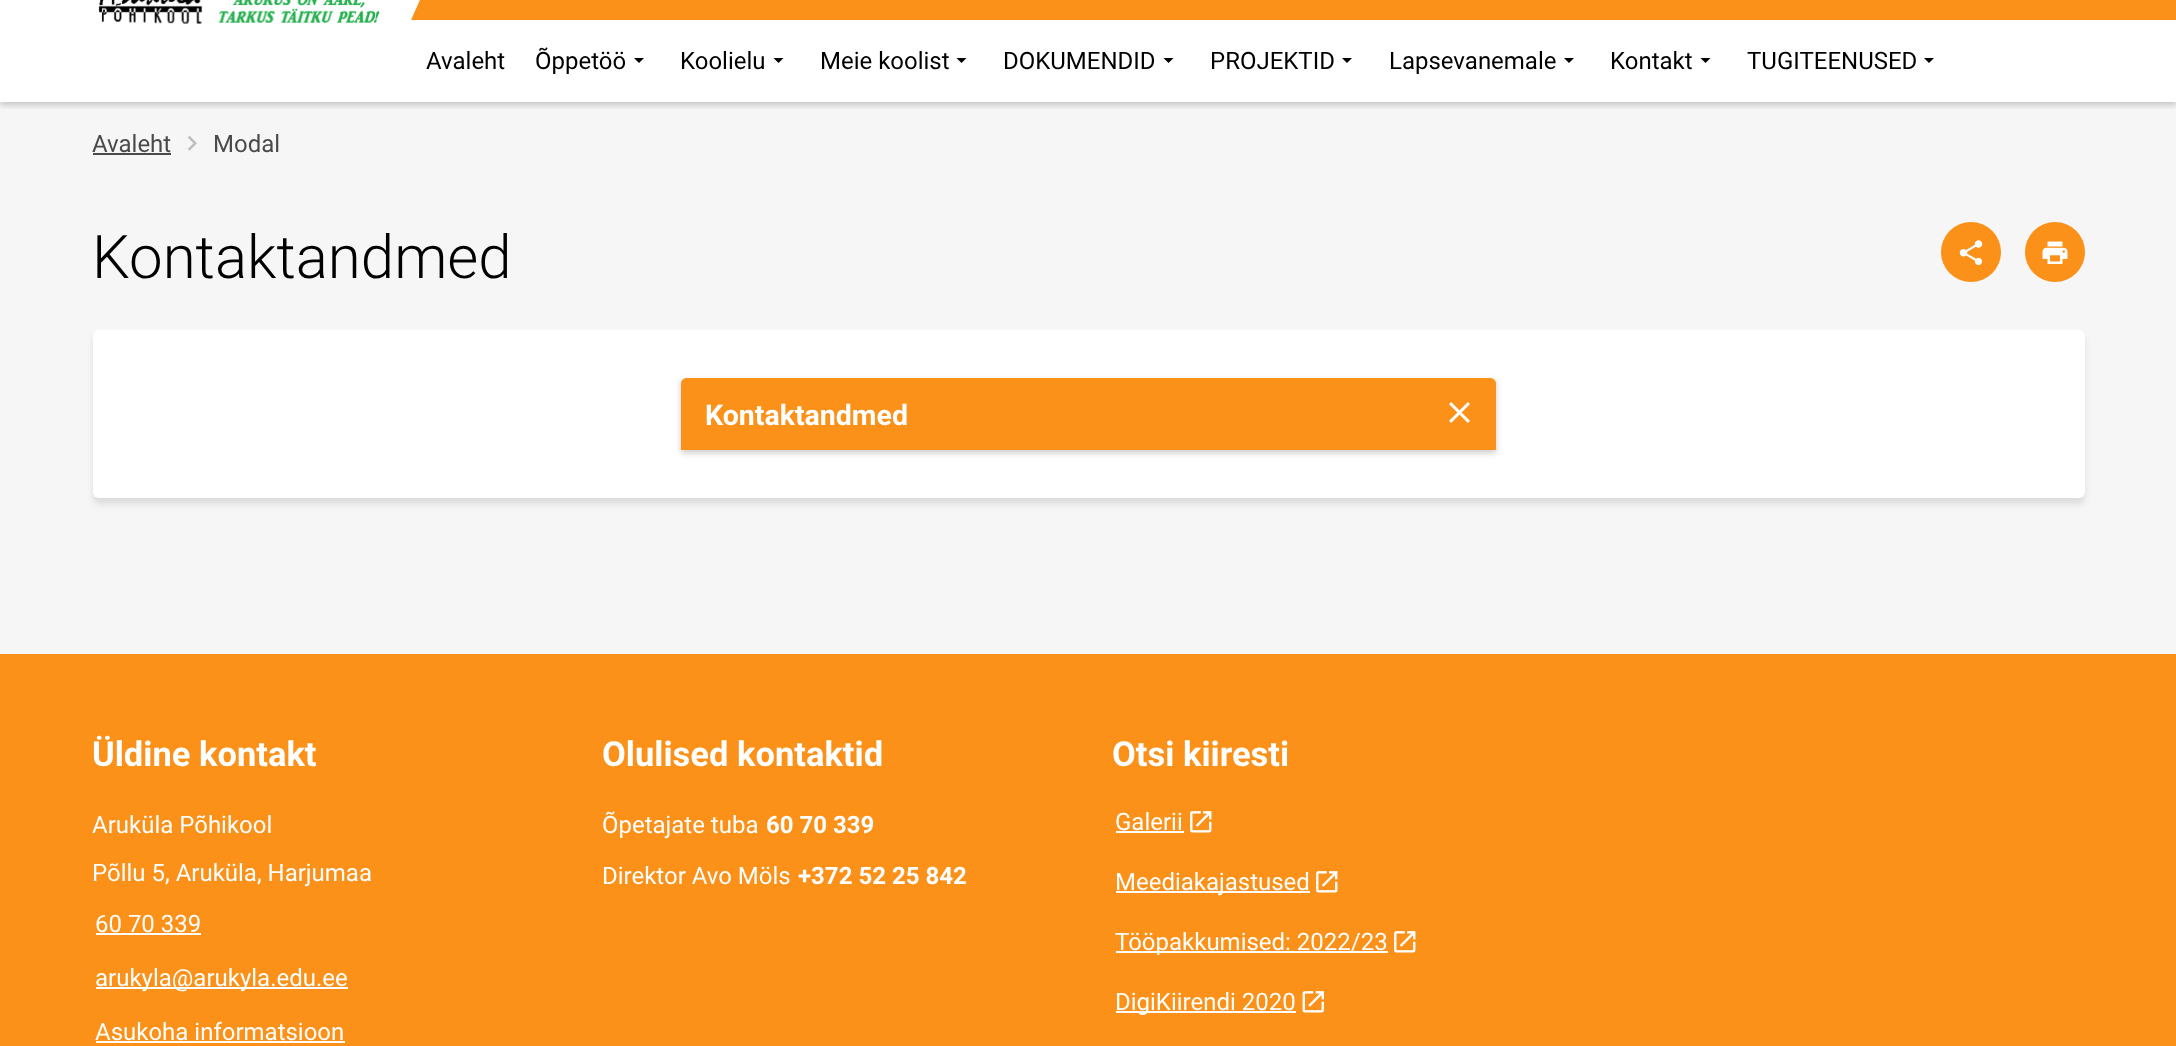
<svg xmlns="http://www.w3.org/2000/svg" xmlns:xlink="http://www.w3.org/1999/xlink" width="2176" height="1046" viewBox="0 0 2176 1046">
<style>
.cls-1{font:24px Roboto;fill:#000000}
.cls-2{font:24px Roboto;fill:#4a4a4a}
.cls-3{font:300 60px Roboto;fill:#000000}
.cls-4{font:bold 28.5px Roboto;fill:#ffffff}
.cls-5{font:bold 34.5px Roboto;fill:#ffffff}
.cls-6{font:24px Roboto;fill:#ffffff}
.cls-7{font:bold 24px Roboto;fill:#ffffff}
</style>
<defs>
<clipPath id="clip1"><rect x="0" y="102" width="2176" height="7"/></clipPath>
</defs>
<rect width="100%" height="100%" fill="#ffffff"/>
<rect fill="#f6f6f6" x="0" y="102" width="2176" height="552"/>
<g clip-path="url(#clip1)">
<rect fill="#000000" fill-opacity="0.2" filter="blur(3px)" x="0" y="-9" width="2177" height="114"/>
</g>
<rect fill="#fb9118" x="411" y="0" width="1765" height="20"/>
<path fill="#ffffff" d="M393-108H468L411 20H336Z"/>
<image xlink:href="image0.png" x="98" y="0" width="282" height="24"/>
<path fill="#000000" d="M634 58L639 63L644 58Z"/>
<path fill="#000000" d="M773.5 58L778.5 63L783.5 58Z"/>
<path fill="#000000" d="M956.5 58L961.5 63L966.5 58Z"/>
<path fill="#000000" d="M1163.5 58L1168.5 63L1173.5 58Z"/>
<path fill="#000000" d="M1342 58L1347 63L1352 58Z"/>
<path fill="#000000" d="M1564 58L1569 63L1574 58Z"/>
<path fill="#000000" d="M1700.5 58L1705.5 63L1710.5 58Z"/>
<path fill="#000000" d="M1924 58L1929 63L1934 58Z"/>
<rect fill="#4a4a4a" x="93" y="153" width="78" height="2"/>
<image xlink:href="image1.png" x="187" y="136" width="10" height="15"/>
<circle fill="#fb9118" cx="1971" cy="252" r="30"/>
<image xlink:href="image2.png" x="1959" y="240" width="24" height="26"/>
<circle fill="#fb9118" cx="2055" cy="252" r="30"/>
<image xlink:href="image3.png" x="2042" y="241" width="26" height="23"/>
<rect fill="#000000" fill-opacity="0.1" filter="blur(3px)" x="93" y="336" width="1992" height="168" rx="6"/>
<rect fill="#ffffff" x="93" y="330" width="1992" height="168" rx="6"/>
<rect fill="#000000" fill-opacity="0.2" filter="blur(3px)" x="681" y="381" width="815" height="72"/>
<path fill="#fb9118" d="M687 378H1490C1493.5 378 1496 380.5 1496 384V450H681V384C681 380.5 683.5 378 687 378Z"/>
<image xlink:href="image4.png" x="1449" y="402" width="21" height="21"/>
<rect fill="#fb9118" x="0" y="654" width="2176" height="392"/>
<rect fill="#ffffff" x="96" y="933" width="105" height="2"/>
<rect fill="#ffffff" x="96" y="987" width="252" height="2"/>
<rect fill="#ffffff" x="96" y="1041" width="249" height="2"/>
<rect fill="#ffffff" x="1116" y="831" width="68" height="2"/>
<image xlink:href="image5.png" x="1190" y="811" width="22" height="22"/>
<rect fill="#ffffff" x="1116" y="891" width="194" height="2"/>
<image xlink:href="image5.png" x="1316" y="871" width="22" height="22"/>
<rect fill="#ffffff" x="1116" y="951" width="272" height="2"/>
<image xlink:href="image5.png" x="1394" y="931" width="22" height="22"/>
<rect fill="#ffffff" x="1116" y="1011" width="180" height="2"/>
<image xlink:href="image6.png" x="1302" y="991" width="22" height="22"/>
<text class="cls-1" x="426" y="69">Avaleht</text>
<text class="cls-1" x="535" y="69">Õppetöö</text>
<text class="cls-1" x="680" y="69">Koolielu</text>
<text class="cls-1" x="820" y="69">Meie koolist</text>
<text class="cls-1" x="1003" y="69">DOKUMENDID</text>
<text class="cls-1" x="1210" y="69">PROJEKTID</text>
<text class="cls-1" x="1389" y="69">Lapsevanemale</text>
<text class="cls-1" x="1610" y="69">Kontakt</text>
<text class="cls-1" x="1747" y="69">TUGITEENUSED</text>
<text class="cls-2" x="92" y="152">Avaleht</text>
<text class="cls-2" x="213" y="152">Modal</text>
<text class="cls-3" x="92" y="278">Kontaktandmed</text>
<text class="cls-4" x="705" y="425">Kontaktandmed</text>
<text class="cls-5" x="92" y="766">Üldine kontakt</text>
<text class="cls-6" x="92" y="833">Aruküla Põhikool</text>
<text class="cls-6" x="92" y="881">Põllu 5, Aruküla, Harjumaa</text>
<text class="cls-6" x="95" y="932">60 70 339</text>
<text class="cls-6" x="95" y="986">arukyla@arukyla.edu.ee</text>
<text class="cls-6" x="95" y="1040">Asukoha informatsioon</text>
<text class="cls-5" x="602" y="766">Olulised kontaktid</text>
<text class="cls-6" x="602" y="833">Õpetajate tuba</text>
<text class="cls-7" x="766" y="833">60 70 339</text>
<text class="cls-6" x="602" y="884">Direktor Avo Möls</text>
<text class="cls-7" x="798" y="884">+372 52 25 842</text>
<text class="cls-5" x="1112" y="766">Otsi kiiresti</text>
<text class="cls-6" x="1115" y="830">Galerii</text>
<text class="cls-6" x="1115" y="890">Meediakajastused</text>
<text class="cls-6" x="1115" y="950">Tööpakkumised: 2022/23</text>
<text class="cls-6" x="1115" y="1010">DigiKiirendi 2020</text>
</svg>
